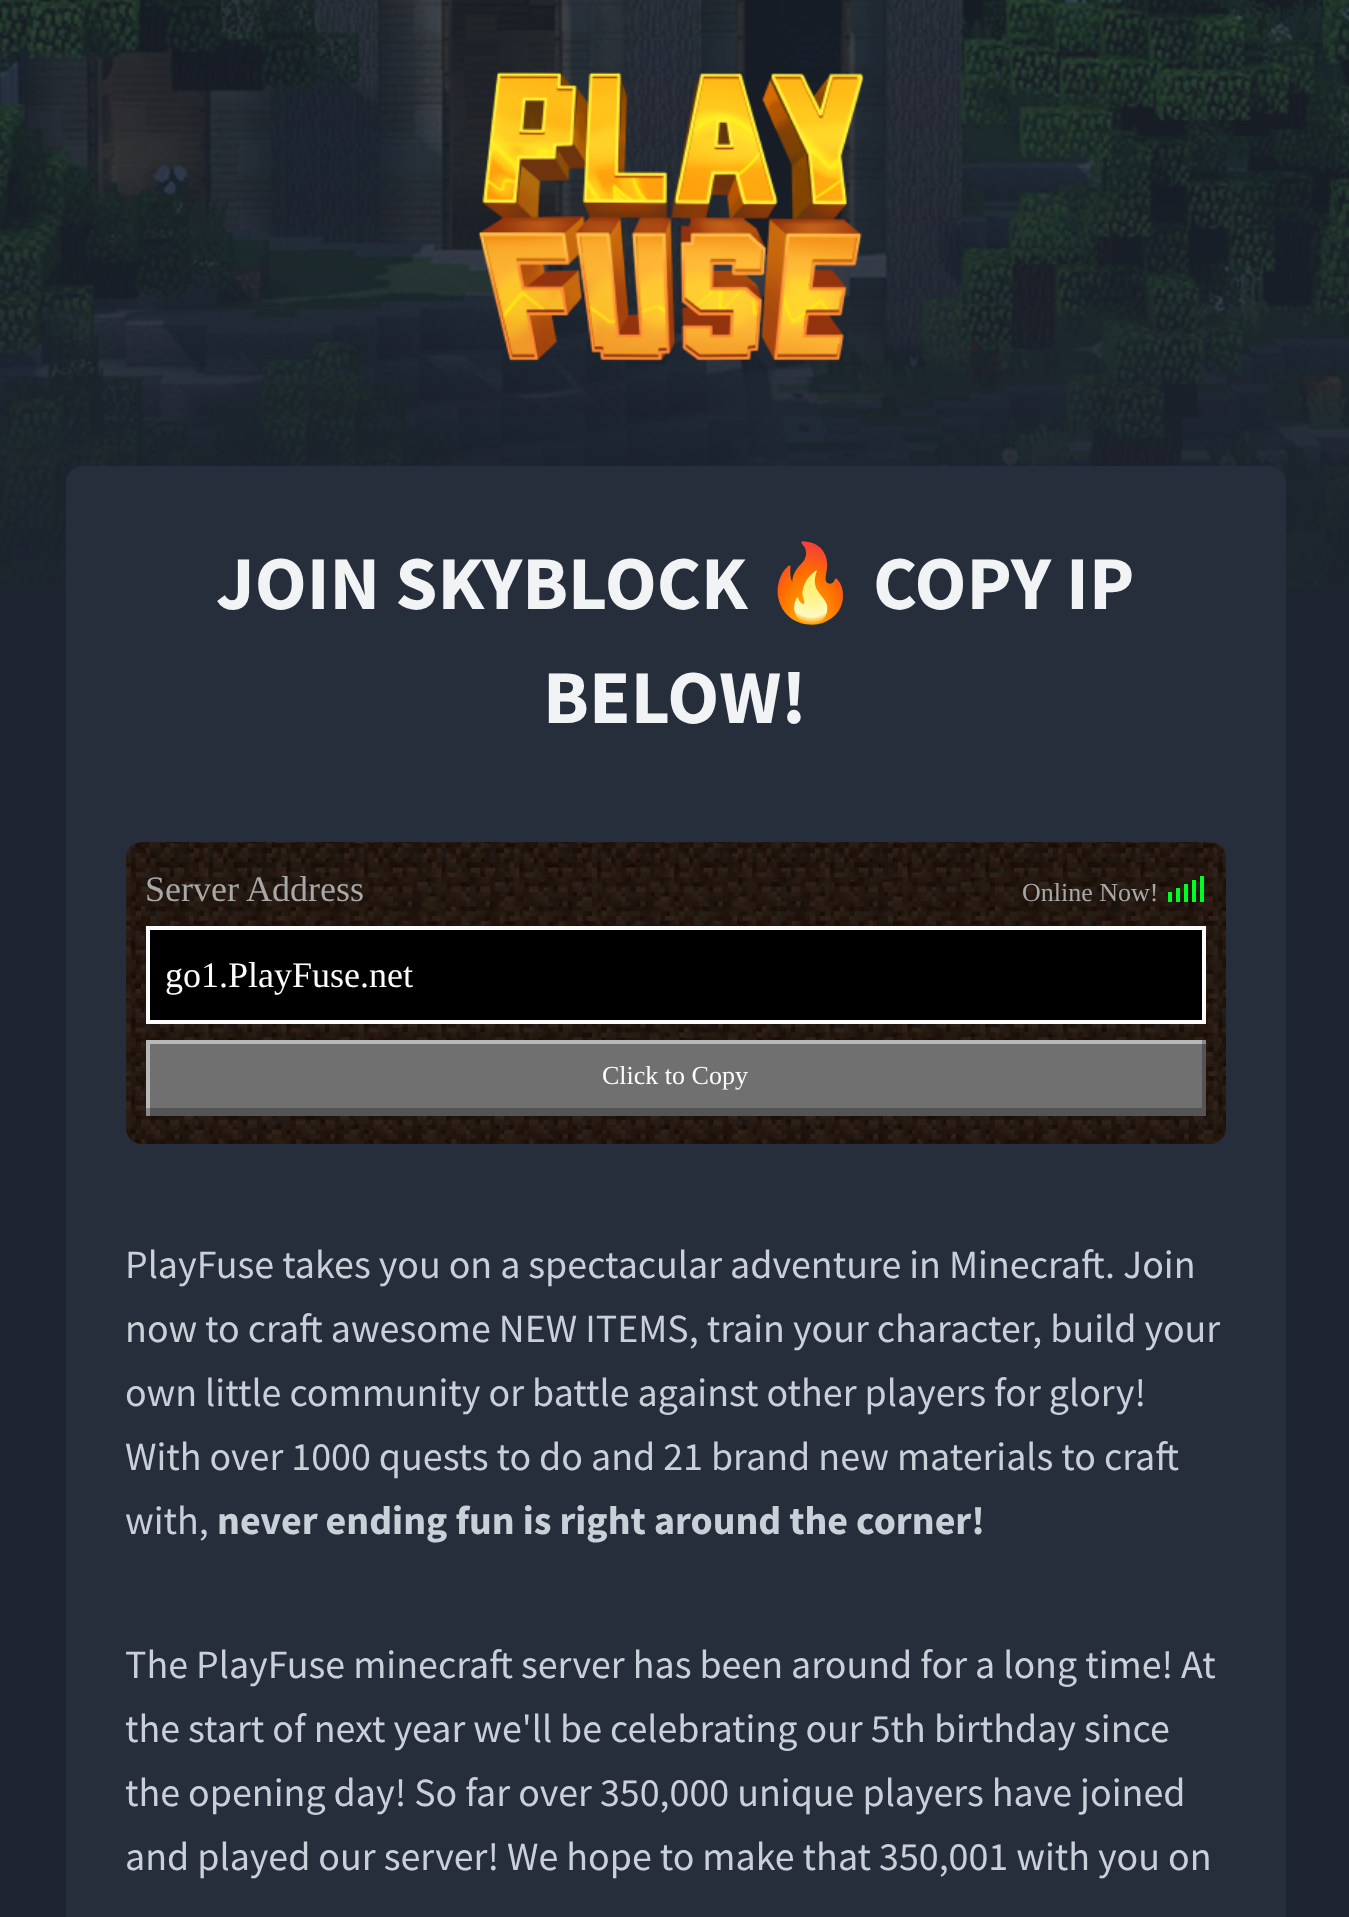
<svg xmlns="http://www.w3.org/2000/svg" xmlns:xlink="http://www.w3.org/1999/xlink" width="1349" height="1917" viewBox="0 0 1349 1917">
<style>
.cls-1{font:bold 76px Source Sans Pro;fill:#f1f3f5}
.cls-2{font:bold 76px Noto Color Emoji;fill:#f1f3f5}
.cls-3{font:36px Liberation Serif;fill:#a8a8a8}
.cls-4{font:26px Liberation Serif;fill:#a8a8a8}
.cls-5{font:36px Liberation Serif;fill:#fcfcfc}
.cls-6{font:26px Liberation Serif;fill:#fcfcfc}
.cls-7{font:40px Source Sans Pro;fill:#cad0d8}
.cls-8{font:bold 40px Source Sans Pro;fill:#cad0d8}
</style>
<defs>
<clipPath id="clip1"><rect x="146" y="1040" width="1060" height="76"/></clipPath>
</defs>
<rect width="100%" height="100%" fill="#1d242f"/>
<image xlink:href="image0.png" x="0" y="0" width="1349" height="587"/>
<image xlink:href="image1.png" x="478" y="72" width="386" height="290"/>
<rect fill="#262e3c" x="66" y="466" width="1220" height="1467" rx="16"/>
<image xlink:href="image2.png" x="126" y="842" width="1100" height="302"/>
<rect fill="#00ff21" x="1168" y="892" width="4" height="10"/>
<rect fill="#00ff21" x="1176" y="888" width="4" height="14"/>
<rect fill="#00ff21" x="1184" y="884" width="4" height="18"/>
<rect fill="#00ff21" x="1192" y="880" width="4" height="22"/>
<rect fill="#00ff21" x="1200" y="876" width="4" height="26"/>
<rect fill="#000000" stroke="#fcfcfc" stroke-width="4" x="148" y="928" width="1056" height="94"/>
<rect fill="#707070" x="150" y="1044" width="1056" height="72"/>
<g clip-path="url(#clip1)">
<path fill="#b8b8b8" fill-rule="evenodd" d="M-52 842H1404V1314H-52ZM150 1044H1210V1120H150Z"/>
<path fill="#000000" fill-opacity="0.25" fill-rule="evenodd" d="M-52 842H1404V1314H-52ZM142 1032H1202V1108H142Z"/>
</g>
<text class="cls-1" x="216" y="609">JOIN SKYBLOCK</text>
<text class="cls-2" x="763" y="609">🔥</text>
<text class="cls-1" x="873" y="609">COPY IP</text>
<text class="cls-1" x="543" y="723">BELOW!</text>
<text class="cls-3" x="145" y="901">Server Address</text>
<text class="cls-4" x="1022" y="901">Online Now!</text>
<text class="cls-5" x="165" y="987">go1.PlayFuse.net</text>
<text class="cls-6" x="602" y="1084">Click to Copy</text>
<text class="cls-7"><tspan x="125" y="1278">PlayFuse takes you on a spectacular adventure in Minecraft. Join</tspan><tspan x="125" y="1342">now to craft awesome NEW ITEMS, train your character, build your</tspan><tspan x="125" y="1406">own little community or battle against other players for glory!</tspan><tspan x="125" y="1470">With over 1000 quests to do and 21 brand new materials to craft</tspan><tspan x="125" y="1534">with,</tspan></text>
<text class="cls-8" x="217" y="1534">never ending fun is right around the corner!</text>
<text class="cls-7"><tspan x="125" y="1678">The PlayFuse minecraft server has been around for a long time! At</tspan><tspan x="125" y="1742">the start of next year we'll be celebrating our 5th birthday since</tspan><tspan x="125" y="1806">the opening day! So far over 350,000 unique players have joined</tspan><tspan x="125" y="1870">and played our server! We hope to make that 350,001 with you on</tspan></text>
</svg>
